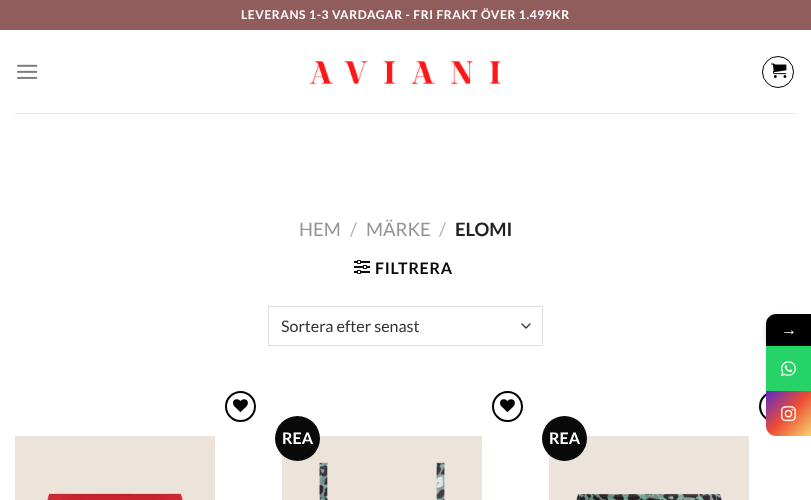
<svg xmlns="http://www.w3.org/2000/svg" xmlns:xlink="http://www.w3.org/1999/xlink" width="811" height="500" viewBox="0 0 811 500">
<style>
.cls-1{font:bold 12px Lato;letter-spacing:0.6px;fill:#ffffff}
.cls-2{font:18.5px Lato;fill:#949494}
.cls-3{font:18.5px Lato;fill:#b2b2b2}
.cls-4{font:bold 18.5px Lato;fill:#222222}
.cls-5{font:bold 16px Lato;letter-spacing:0.75px;fill:#0a0a0a}
.cls-6{font:16px Lato;fill:#333333}
.cls-7{font:bold 16px Lato;fill:#ffffff}
.cls-8{font:16px Liberation Serif;fill:#ffffff}
</style>
<defs>
<linearGradient id="g1" gradientUnits="userSpaceOnUse" x1="766" y1="391" x2="811" y2="436"><stop offset="0" stop-color="#582bcd"/><stop offset="0.5" stop-color="#ed4c33"/><stop offset="1" stop-color="#f7d36f"/></linearGradient>
</defs>
<rect width="100%" height="100%" fill="#ffffff"/>
<rect fill="#905d5c" x="0" y="0" width="811" height="30"/>
<image xlink:href="image0.png" x="17" y="64" width="21" height="15"/>
<image xlink:href="image1.png" x="309" y="60" width="192" height="26"/>
<circle fill="none" stroke="#000000" cx="778" cy="72" r="15.5"/>
<image xlink:href="image2.png" x="771" y="63" width="16" height="15"/>
<rect fill="#e7e7e7" x="15" y="113" width="781" height="1"/>
<image xlink:href="image3.png" x="354" y="260" width="16" height="14"/>
<path fill="none" stroke="#333333" stroke-width="1.3" stroke-linecap="round" stroke-linejoin="round" d="M522 324L526 328L530 324"/>
<rect fill="none" stroke="#dddddd" x="268.5" y="306.5" width="274" height="39"/>
<circle fill="none" stroke="#000000" stroke-width="2" cx="240.5" cy="406.5" r="14.5"/>
<image xlink:href="image4.png" x="233" y="399" width="15" height="13"/>
<image xlink:href="image5.png" x="15" y="436" width="200" height="64"/>
<circle fill="none" stroke="#000000" stroke-width="2" cx="507.5" cy="406.5" r="14.5"/>
<image xlink:href="image4.png" x="500" y="399" width="15" height="13"/>
<image xlink:href="image6.png" x="282" y="436" width="200" height="64"/>
<circle fill="#0a0a0a" cx="297.5" cy="438.5" r="22.5"/>
<circle fill="none" stroke="#000000" stroke-width="2" cx="774.5" cy="406.5" r="14.5"/>
<image xlink:href="image7.png" x="549" y="436" width="200" height="64"/>
<circle fill="#0a0a0a" cx="564.5" cy="438.5" r="22.5"/>
<rect fill="#000000" fill-opacity="0.16" filter="blur(3px)" x="766" y="317" width="45" height="32" rx="10"/>
<path fill="#000000" d="M776 314H811V346H766V324C766 318.5 770.5 314 776 314Z"/>
<rect fill="#26d367" x="766" y="346" width="45" height="45"/>
<image xlink:href="image8.png" x="781" y="361" width="15" height="15"/>
<path fill="url(#g1)" d="M766 391H811V436H776C770.5 436 766 431.5 766 426Z"/>
<image xlink:href="image9.png" x="781" y="406" width="15" height="16"/>
<text class="cls-1" x="241" y="19">LEVERANS 1-3 VARDAGAR - FRI FRAKT ÖVER 1.499KR</text>
<text class="cls-2" x="299" y="236">HEM</text>
<text class="cls-3" x="350" y="236">/</text>
<text class="cls-2" x="366" y="236">MÄRKE</text>
<text class="cls-3" x="439" y="236">/</text>
<text class="cls-4" x="455" y="236">ELOMI</text>
<text class="cls-5" x="375" y="274">FILTRERA</text>
<text class="cls-6" x="281" y="332">Sortera efter senast</text>
<text class="cls-7" x="282" y="444">REA</text>
<text class="cls-7" x="549" y="444">REA</text>
<text class="cls-8" x="781" y="335">→</text>
</svg>
